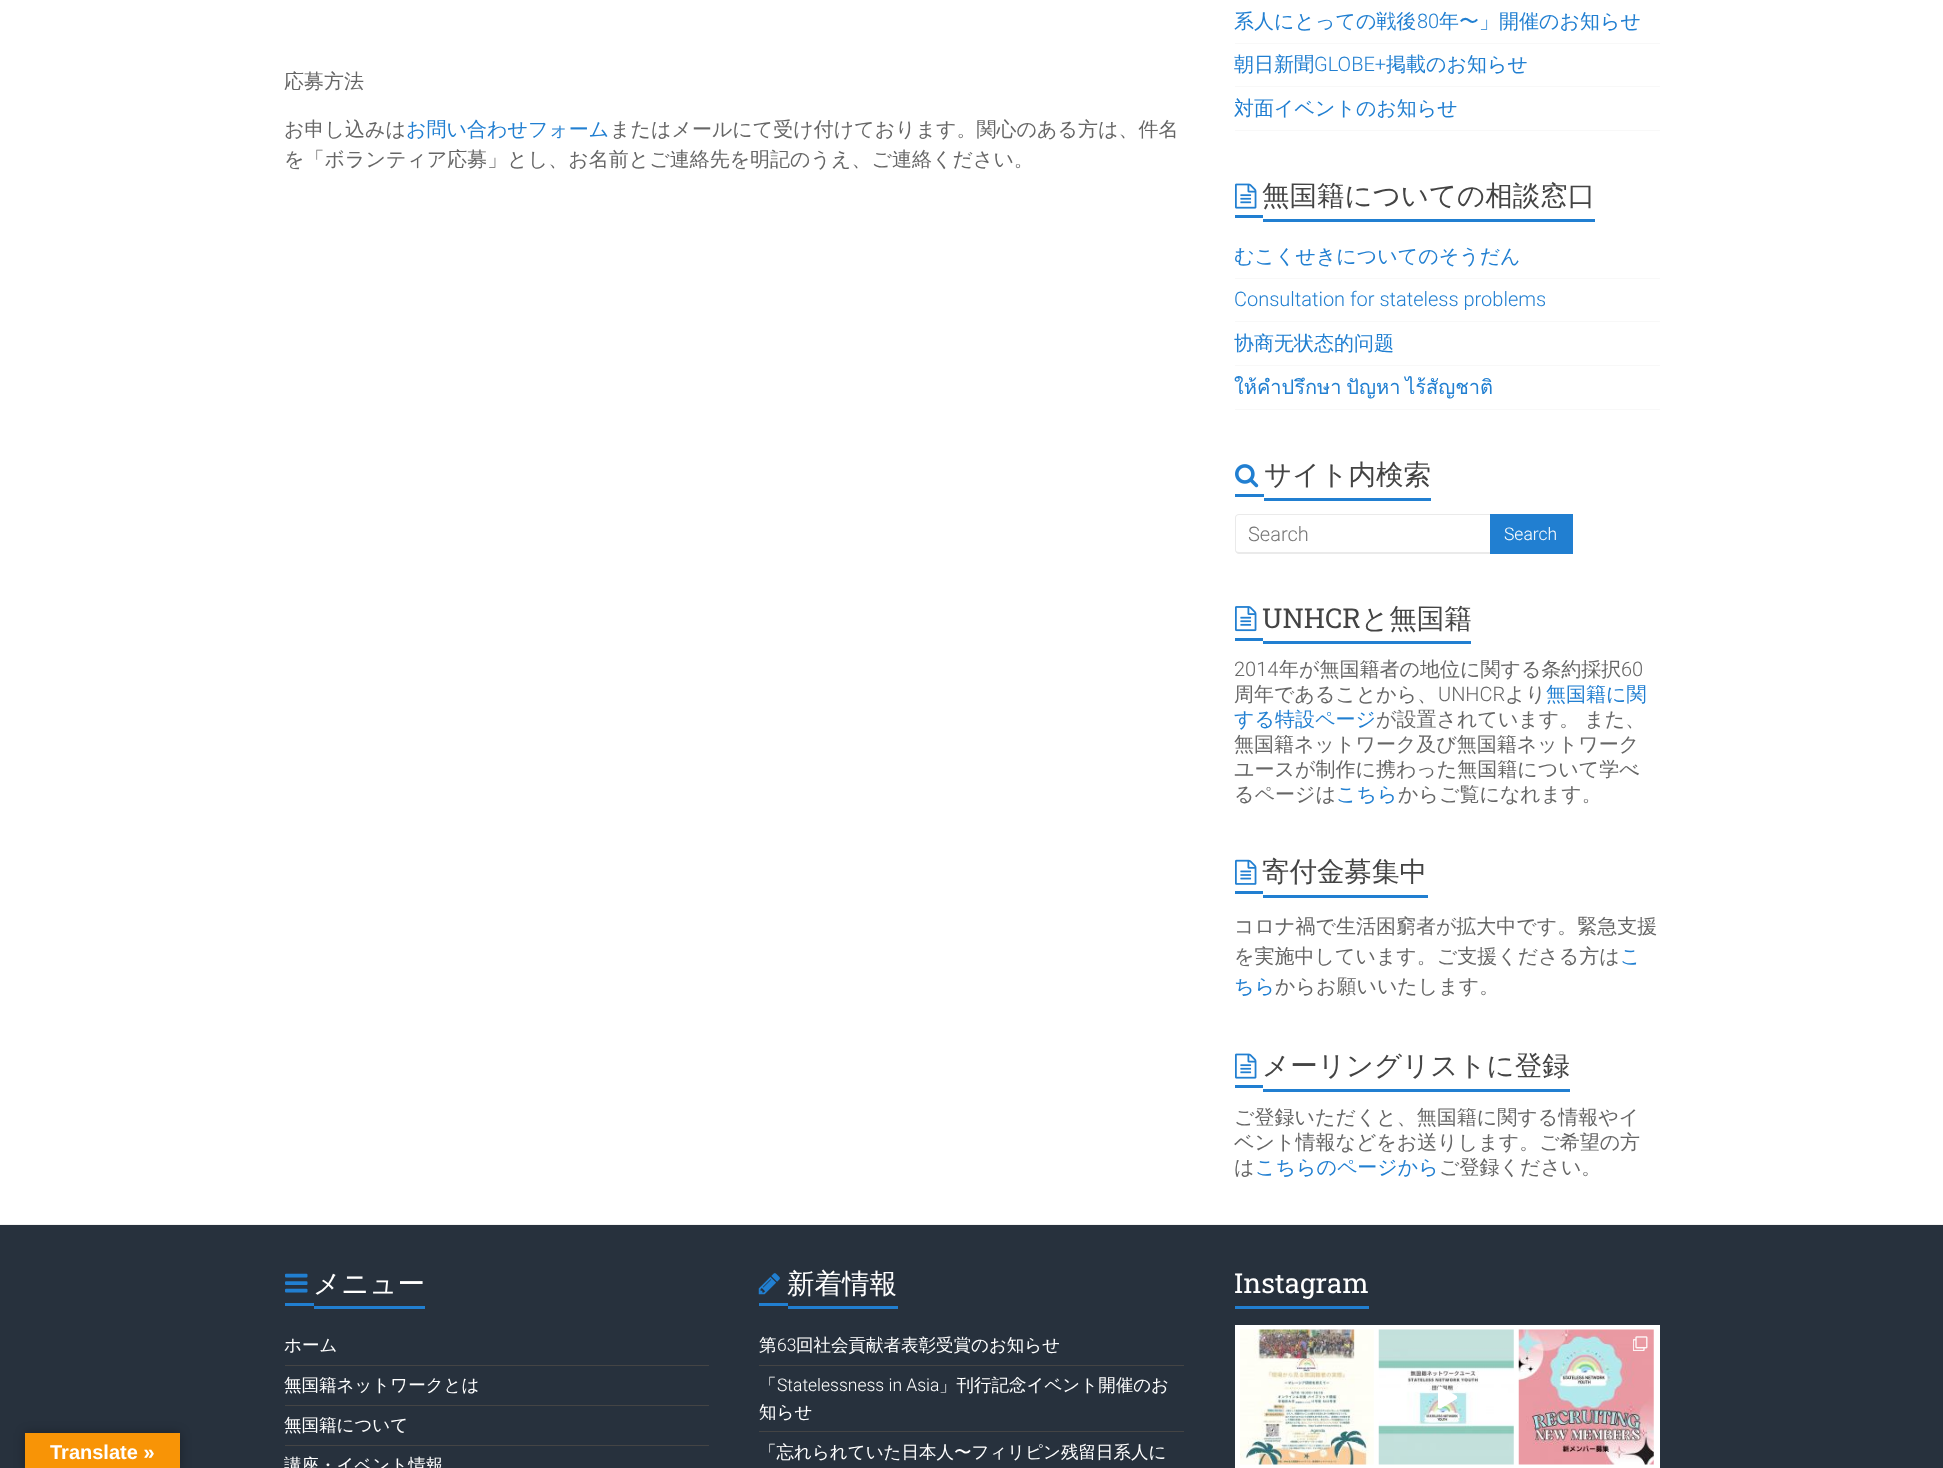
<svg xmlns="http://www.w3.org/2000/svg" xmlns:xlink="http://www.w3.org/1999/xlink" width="1943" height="1468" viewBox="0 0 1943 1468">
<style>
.cls-1{font:bold 20px Liberation Sans;fill:#ffffff}
.cls-2{font:500 20px WenQuanYi Zen Hei;fill:#666666}
.cls-3{font:500 20px WenQuanYi Zen Hei;fill:#217fd1}
.cls-4{font:300 20px Roboto;fill:#217fd1}
.cls-5{font:500 27.5px WenQuanYi Zen Hei;fill:#444444}
.cls-6{font:20px Loma;fill:#217fd1}
.cls-7{font:300 20px Roboto;fill:#757575}
.cls-8{font:300 17.5px Roboto;fill:#ffffff}
.cls-9{font:27.5px Roboto Slab;fill:#444444}
.cls-10{font:300 20px Roboto;fill:#666666}
.cls-11{font:500 27.5px WenQuanYi Zen Hei;fill:#ffffff}
.cls-12{font:500 17.5px WenQuanYi Zen Hei;fill:#ffffff}
.cls-13{font:27.5px Roboto Slab;fill:#ffffff}
</style>
<rect width="100%" height="100%" fill="#ffffff"/>
<rect fill="#27313d" x="0" y="1225" width="1943" height="243"/>
<rect fill="#000000" fill-opacity="0.3" filter="blur(5.5px)" x="25" y="1433" width="155" height="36"/>
<rect fill="#f89406" x="25" y="1433" width="155" height="35"/>
<rect fill="#f8f8f8" x="1235" y="43" width="425" height="1"/>
<rect fill="#f8f8f8" x="1235" y="86" width="425" height="1"/>
<rect fill="#f8f8f8" x="1235" y="130" width="425" height="1"/>
<image xlink:href="image0.png" x="1235" y="183" width="22" height="26"/>
<rect fill="#217fd1" x="1235" y="215" width="28" height="3"/>
<rect fill="#217fd1" x="1263" y="219" width="332" height="3"/>
<rect fill="#f8f8f8" x="1235" y="278" width="425" height="1"/>
<rect fill="#f8f8f8" x="1235" y="321" width="425" height="1"/>
<rect fill="#f8f8f8" x="1235" y="365" width="425" height="1"/>
<rect fill="#f8f8f8" x="1235" y="409" width="425" height="1"/>
<image xlink:href="image1.png" x="1235" y="464" width="24" height="24"/>
<rect fill="#217fd1" x="1235" y="494" width="29" height="3"/>
<rect fill="#217fd1" x="1264" y="498" width="167" height="3"/>
<path fill="#eaeaea" fill-rule="evenodd" d="M1239 514H1490V554H1239C1237 554 1235 552 1235 550V518C1235 515 1237 514 1239 514ZM1239 515H1490V552H1239C1237 552 1236 551 1236 550V518C1236 516 1237 515 1239 515Z"/>
<rect fill="#217fd1" x="1490" y="514" width="83" height="40"/>
<image xlink:href="image2.png" x="1235" y="606" width="22" height="26"/>
<rect fill="#217fd1" x="1235" y="638" width="28" height="3"/>
<rect fill="#217fd1" x="1263" y="641" width="208" height="3"/>
<image xlink:href="image3.png" x="1235" y="859" width="22" height="26"/>
<rect fill="#217fd1" x="1235" y="891" width="28" height="3"/>
<rect fill="#217fd1" x="1263" y="895" width="165" height="3"/>
<image xlink:href="image0.png" x="1235" y="1053" width="22" height="26"/>
<rect fill="#217fd1" x="1235" y="1085" width="28" height="3"/>
<rect fill="#217fd1" x="1263" y="1089" width="307" height="3"/>
<rect fill="#f2f2f2" x="0" y="1224" width="1943" height="1"/>
<image xlink:href="image4.png" x="285" y="1273" width="23" height="20"/>
<rect fill="#217fd1" x="285" y="1303" width="29" height="3"/>
<rect fill="#217fd1" x="314" y="1306" width="111" height="3"/>
<rect fill="#444444" x="285" y="1365" width="424" height="1"/>
<rect fill="#444444" x="285" y="1405" width="424" height="1"/>
<rect fill="#444444" x="285" y="1445" width="424" height="1"/>
<image xlink:href="image5.png" x="758" y="1273" width="22" height="22"/>
<rect fill="#217fd1" x="759" y="1303" width="29" height="3"/>
<rect fill="#217fd1" x="788" y="1306" width="110" height="3"/>
<rect fill="#444444" x="759" y="1365" width="425" height="1"/>
<rect fill="#444444" x="759" y="1431" width="425" height="1"/>
<rect fill="#217fd1" x="1235" y="1306" width="134" height="3"/>
<rect fill="#ffffff" x="1235" y="1325" width="425" height="143"/>
<image xlink:href="image6.png" x="1240" y="1329" width="134" height="136"/>
<image xlink:href="image7.png" x="1378" y="1329" width="136" height="136"/>
<image xlink:href="image8.png" x="1438" y="1386" width="20" height="23"/>
<image xlink:href="image9.png" x="1518" y="1329" width="136" height="136"/>
<image xlink:href="image10.png" x="1633" y="1336" width="15" height="15"/>
<text class="cls-1" x="50" y="1459">Translate »</text>
<text class="cls-2" x="284" y="88">応募方法</text>
<text class="cls-2" x="284" y="136">お申し込みは</text>
<text class="cls-3" x="406" y="136">お問い合わせフォーム</text>
<text class="cls-2" x="610" y="136">またはメールにて受け付けております。関心のある方は、件名</text>
<text class="cls-2" x="284" y="166">を「ボランティア応募」とし、お名前とご連絡先を明記のうえ、ご連絡ください。</text>
<text class="cls-3" x="1234" y="28">系人にとっての戦後</text>
<text class="cls-4" x="1417" y="28">80</text>
<text class="cls-3" x="1439" y="28">年〜」開催のお知らせ</text>
<text class="cls-3" x="1234" y="71">朝日新聞</text>
<text class="cls-4" x="1314" y="71">GLOBE+</text>
<text class="cls-3" x="1386" y="71">掲載のお知らせ</text>
<text class="cls-3" x="1234" y="115">対面イベントのお知らせ</text>
<text class="cls-5" x="1262" y="205">無国籍についての相談窓口</text>
<text class="cls-3" x="1234" y="263">むこくせきについてのそうだん</text>
<text class="cls-4" x="1234" y="306">Consultation for stateless problems</text>
<text class="cls-3" x="1234" y="350">协商无状态的问题</text>
<text class="cls-6" x="1234" y="394" word-spacing="-2">ให้คำปรึกษา ปัญหา ไร้สัญชาติ</text>
<text class="cls-5" x="1264" y="484">サイト内検索</text>
<text class="cls-7" x="1248" y="541">Search</text>
<text class="cls-8" x="1504" y="540">Search</text>
<text class="cls-9" x="1262" y="628">UNHCR</text>
<text class="cls-5" x="1361" y="628">と無国籍</text>
<text class="cls-10" x="1234" y="676">2014</text>
<text class="cls-2" x="1279" y="676">年が無国籍者の地位に関する条約採択</text>
<text class="cls-10" x="1621" y="676">60</text>
<text class="cls-2" x="1234" y="701">周年であることから、</text>
<text class="cls-10" x="1438" y="701">UNHCR</text>
<text class="cls-2" x="1505" y="701">より</text>
<text class="cls-3" x="1546" y="701">無国籍に関</text>
<text class="cls-3" x="1234" y="726">する特設ページ</text>
<text class="cls-2" x="1376" y="726" word-spacing="-1">が設置されています。 また、</text>
<text class="cls-2"><tspan x="1234" y="751">無国籍ネットワーク及び無国籍ネットワーク</tspan><tspan x="1234" y="776">ユースが制作に携わった無国籍について学べ</tspan><tspan x="1234" y="801">るページは</tspan></text>
<text class="cls-3" x="1336" y="801">こちら</text>
<text class="cls-2" x="1398" y="801">からご覧になれます。</text>
<text class="cls-5" x="1262" y="881">寄付金募集中</text>
<text class="cls-2"><tspan x="1234" y="933">コロナ禍で生活困窮者が拡大中です。緊急支援</tspan><tspan x="1234" y="963">を実施中しています。ご支援くださる方は</tspan></text>
<text class="cls-3" x="1620" y="963">こ</text>
<text class="cls-3" x="1234" y="993">ちら</text>
<text class="cls-2" x="1275" y="993">からお願いいたします。</text>
<text class="cls-5" x="1262" y="1075">メーリングリストに登録</text>
<text class="cls-2"><tspan x="1234" y="1124">ご登録いただくと、無国籍に関する情報やイ</tspan><tspan x="1234" y="1149">ベント情報などをお送りします。ご希望の方</tspan><tspan x="1234" y="1174">は</tspan></text>
<text class="cls-3" x="1255" y="1174">こちらのページから</text>
<text class="cls-2" x="1439" y="1174">ご登録ください。</text>
<text class="cls-11" x="313" y="1293">メニュー</text>
<text class="cls-12" x="284" y="1351">ホーム</text>
<text class="cls-12" x="284" y="1391">無国籍ネットワークとは</text>
<text class="cls-12" x="284" y="1431">無国籍について</text>
<text class="cls-12" x="284" y="1471">講座・イベント情報</text>
<text class="cls-11" x="787" y="1293">新着情報</text>
<text class="cls-12" x="759" y="1351">第</text>
<text class="cls-8" x="777" y="1351">63</text>
<text class="cls-12" x="796" y="1351">回社会貢献者表彰受賞のお知らせ</text>
<text class="cls-12" x="759" y="1391">「</text>
<text class="cls-8" x="777" y="1391">Statelessness in Asia</text>
<text class="cls-12" x="939" y="1391">」刊行記念イベント開催のお</text>
<text class="cls-12" x="759" y="1418">知らせ</text>
<text class="cls-12" x="759" y="1458">「忘れられていた日本人〜フィリピン残留日系人に</text>
<text class="cls-13" x="1234" y="1293">Instagram</text>
</svg>
